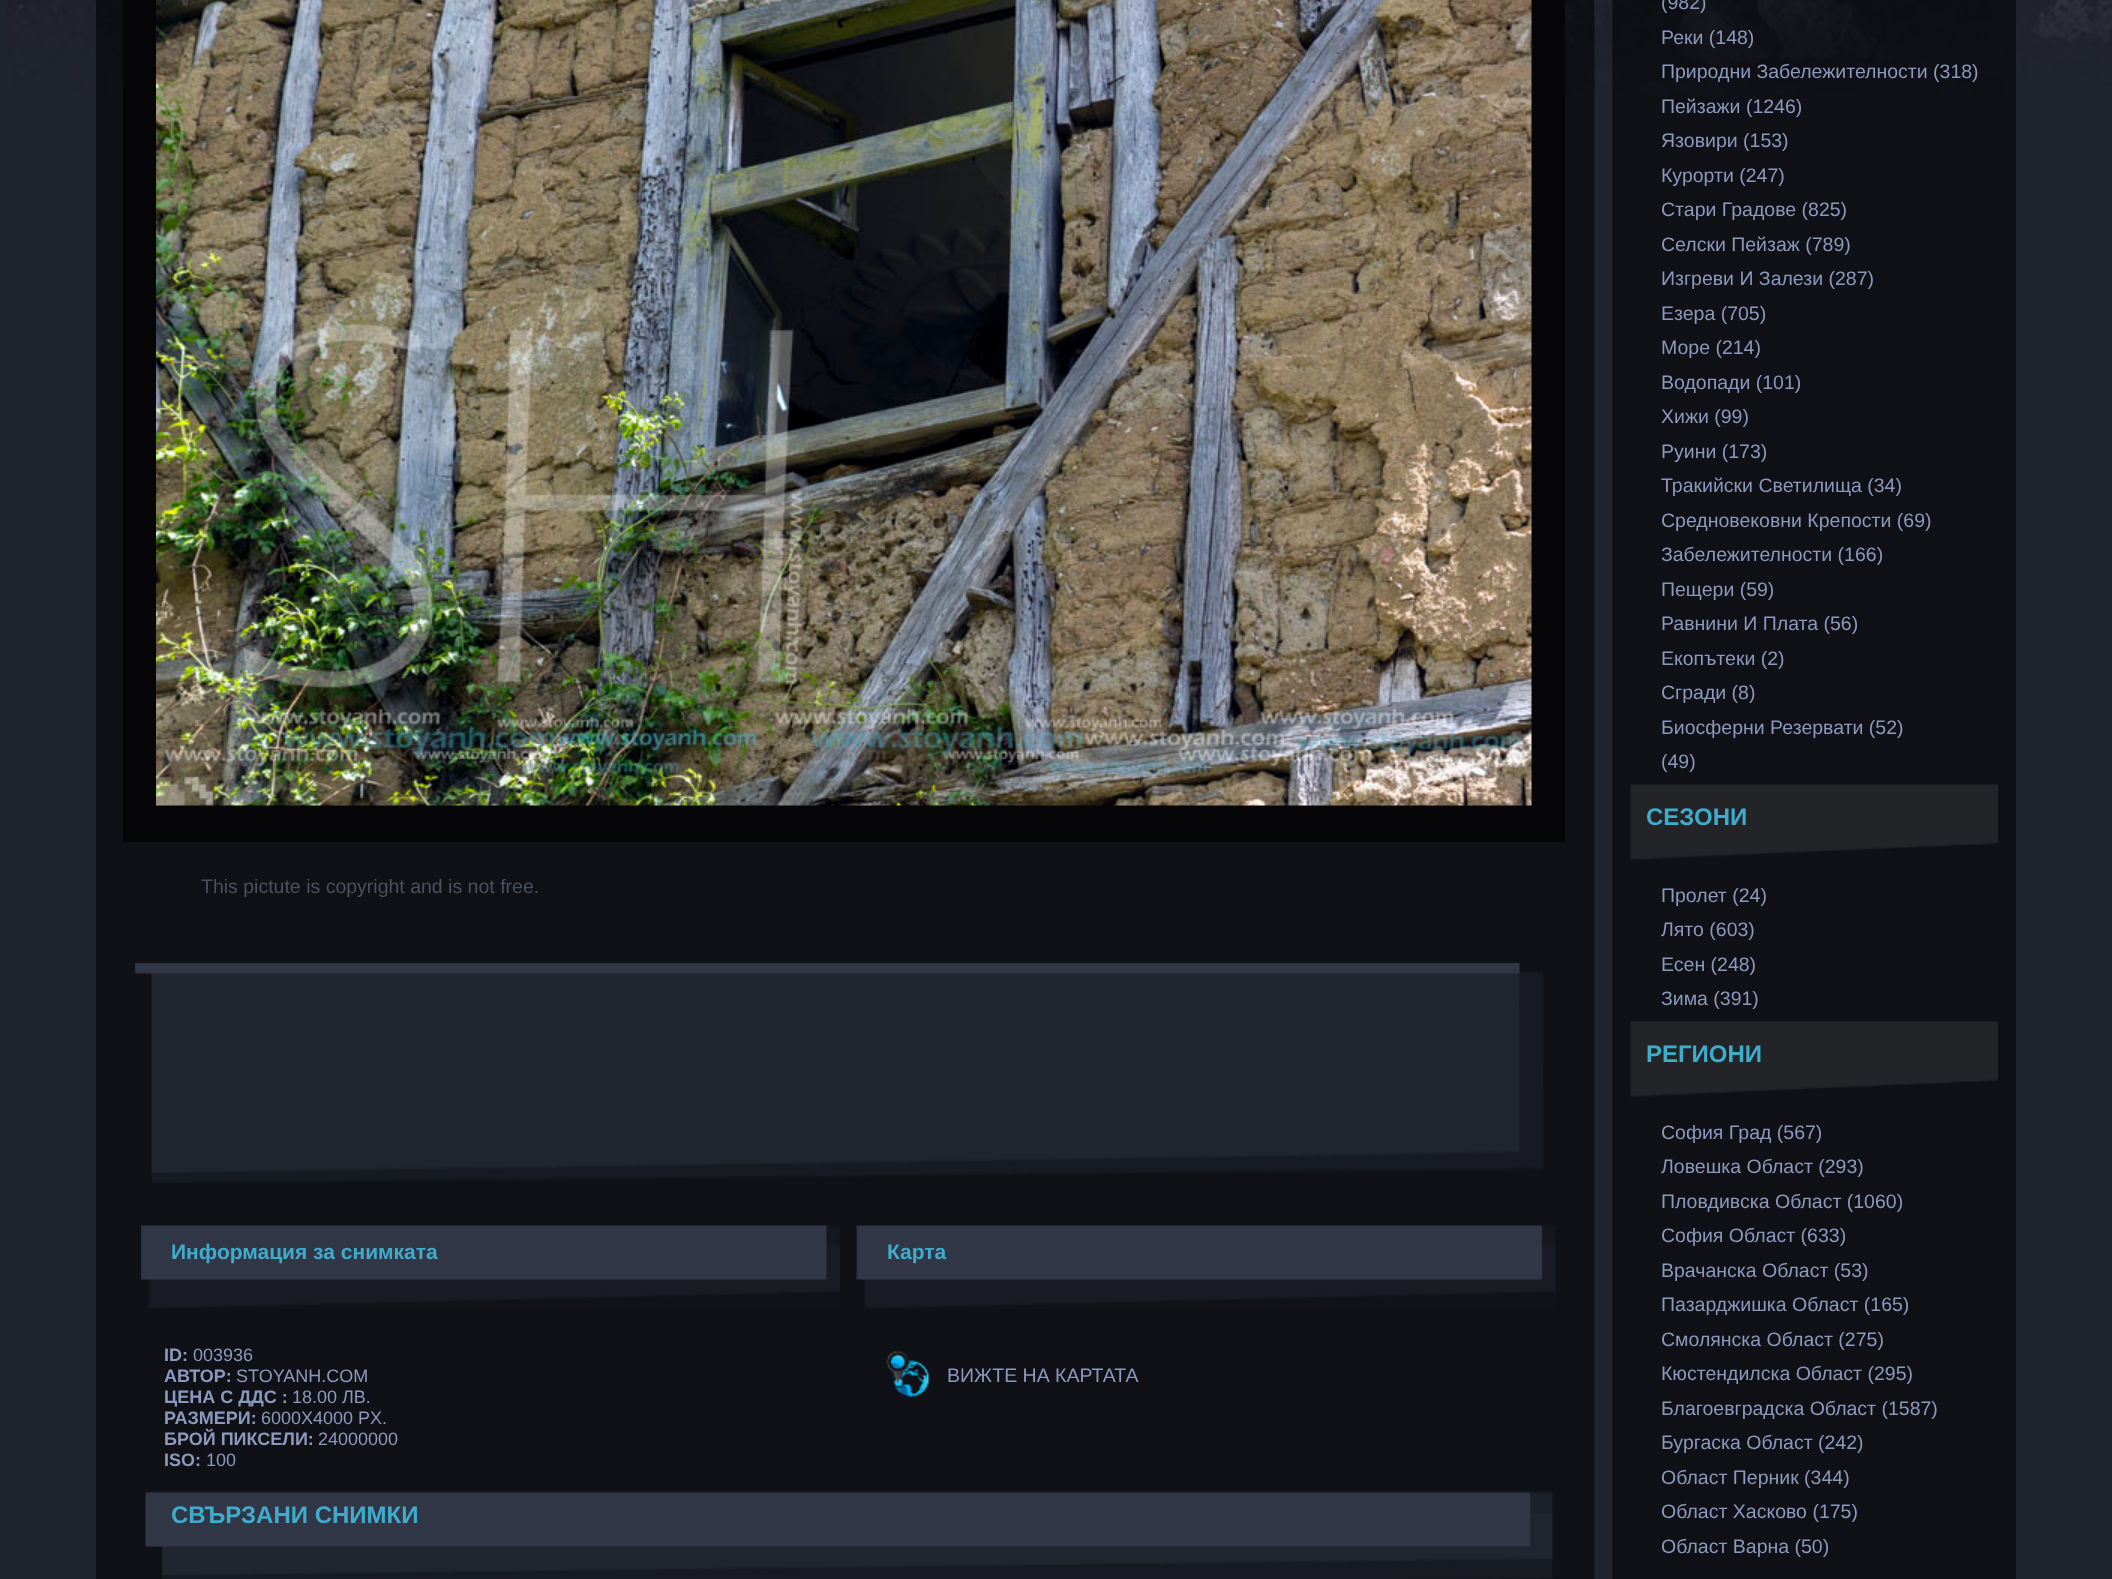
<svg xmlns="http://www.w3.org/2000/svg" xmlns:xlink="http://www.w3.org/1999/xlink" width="2112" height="1579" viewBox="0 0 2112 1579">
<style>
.cls-1{font:19.5px Liberation Sans;fill:#4b515f}
.cls-2{font:bold 21px Liberation Sans;fill:#3faccc}
.cls-3{font:bold 18px Liberation Sans;fill:#8c99bd}
.cls-4{font:18px Liberation Sans;fill:#8c99bd}
.cls-5{font:19.5px Liberation Sans;fill:#8c99bd}
.cls-6{font:bold 24px Liberation Sans;fill:#3faccc}
</style>
<rect width="100%" height="100%" fill="#20242f"/>
<image xlink:href="image0.png" x="7" y="0" width="2105" height="95"/>
<image xlink:href="image1.png" x="96" y="0" width="1920" height="1579"/>
<rect fill="#060608" x="123" y="0" width="1442" height="842"/>
<image xlink:href="image2.png" x="156" y="0" width="1376" height="806"/>
<image xlink:href="image3.png" x="134" y="963" width="1410" height="220"/>
<image xlink:href="image4.png" x="141" y="1225" width="699" height="84"/>
<image xlink:href="image5.png" x="856" y="1225" width="700" height="84"/>
<image xlink:href="image6.png" x="886" y="1351" width="44" height="46"/>
<image xlink:href="image7.png" x="145" y="1491" width="1408" height="88"/>
<image xlink:href="image8.png" x="1630" y="784" width="368" height="76"/>
<image xlink:href="image8.png" x="1630" y="1021" width="368" height="76"/>
<text class="cls-1" x="201" y="893">This pictute is copyright and is not free.</text>
<text class="cls-2" x="171" y="1259">Информация за снимката</text>
<text class="cls-3" x="164" y="1361">ID:</text>
<text class="cls-4" x="193" y="1361">003936</text>
<text class="cls-3" x="164" y="1382">АВТОР:</text>
<text class="cls-4" x="236" y="1382">STOYANH.COM</text>
<text class="cls-3" x="164" y="1403">ЦЕНА С ДДС :</text>
<text class="cls-4" x="292" y="1403">18.00 ЛВ.</text>
<text class="cls-3" x="164" y="1424">РАЗМЕРИ:</text>
<text class="cls-4" x="261" y="1424">6000X4000 PX.</text>
<text class="cls-3" x="164" y="1445">БРОЙ ПИКСЕЛИ:</text>
<text class="cls-4" x="318" y="1445">24000000</text>
<text class="cls-3" x="164" y="1466">ISO:</text>
<text class="cls-4" x="206" y="1466">100</text>
<text class="cls-2" x="887" y="1259">Карта</text>
<text class="cls-5" x="947" y="1382">ВИЖТЕ НА КАРТАТА</text>
<text class="cls-6" x="171" y="1523">СВЪРЗАНИ СНИМКИ</text>
<text class="cls-5"><tspan x="1661" y="9">(982)</tspan><tspan x="1661" y="44">Реки (148)</tspan><tspan x="1661" y="78">Природни Забележителности (318)</tspan><tspan x="1661" y="113">Пейзажи (1246)</tspan><tspan x="1661" y="147">Язовири (153)</tspan><tspan x="1661" y="182">Курорти (247)</tspan><tspan x="1661" y="216">Стари Градове (825)</tspan><tspan x="1661" y="251">Селски Пейзаж (789)</tspan><tspan x="1661" y="285">Изгреви И Залези (287)</tspan><tspan x="1661" y="320">Езера (705)</tspan><tspan x="1661" y="354">Море (214)</tspan><tspan x="1661" y="389">Водопади (101)</tspan><tspan x="1661" y="423">Хижи (99)</tspan><tspan x="1661" y="458">Руини (173)</tspan><tspan x="1661" y="492">Тракийски Светилища (34)</tspan><tspan x="1661" y="527">Средновековни Крепости (69)</tspan><tspan x="1661" y="561">Забележителности (166)</tspan><tspan x="1661" y="596">Пещери (59)</tspan><tspan x="1661" y="630">Равнини И Плата (56)</tspan><tspan x="1661" y="665">Екопътеки (2)</tspan><tspan x="1661" y="699">Сгради (8)</tspan><tspan x="1661" y="734">Биосферни Резервати (52)</tspan><tspan x="1661" y="768">(49)</tspan></text>
<text class="cls-6" x="1646" y="825">СЕЗОНИ</text>
<text class="cls-5"><tspan x="1661" y="902">Пролет (24)</tspan><tspan x="1661" y="936">Лято (603)</tspan><tspan x="1661" y="971">Есен (248)</tspan><tspan x="1661" y="1005">Зима (391)</tspan></text>
<text class="cls-6" x="1646" y="1062">РЕГИОНИ</text>
<text class="cls-5"><tspan x="1661" y="1139">София Град (567)</tspan><tspan x="1661" y="1173">Ловешка Област (293)</tspan><tspan x="1661" y="1208">Пловдивска Област (1060)</tspan><tspan x="1661" y="1242">София Област (633)</tspan><tspan x="1661" y="1277">Врачанска Област (53)</tspan><tspan x="1661" y="1311">Пазарджишка Област (165)</tspan><tspan x="1661" y="1346">Смолянска Област (275)</tspan><tspan x="1661" y="1380">Кюстендилска Област (295)</tspan><tspan x="1661" y="1415">Благоевградска Област (1587)</tspan><tspan x="1661" y="1449">Бургаска Област (242)</tspan><tspan x="1661" y="1484">Област Перник (344)</tspan><tspan x="1661" y="1518">Област Хасково (175)</tspan><tspan x="1661" y="1553">Област Варна (50)</tspan></text>
</svg>
